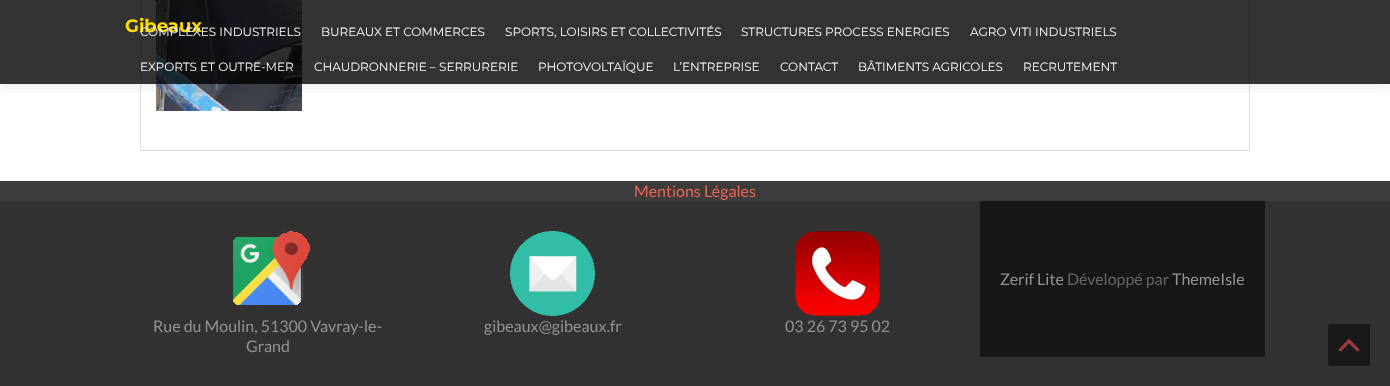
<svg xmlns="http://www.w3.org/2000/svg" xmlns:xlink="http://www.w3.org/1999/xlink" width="1390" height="386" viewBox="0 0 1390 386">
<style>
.cls-1{font:bold 18px Montserrat;fill:#ffdd00}
.cls-2{font:12px Montserrat;fill:#ffffff}
.cls-3{font:16px Lato;fill:#e96656}
.cls-4{font:16px Lato;fill:#939393}
.cls-5{font:16px Lato;fill:#666666}
</style>
<defs>
<clipPath id="clip1"><rect x="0" y="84" width="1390" height="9"/></clipPath>
</defs>
<rect width="100%" height="100%" fill="#ffffff"/>
<rect fill="none" stroke="#dedede" x="140.5" y="-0.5" width="1109" height="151"/>
<image xlink:href="image0.png" x="156" y="0" width="146" height="111"/>
<g clip-path="url(#clip1)">
<rect fill="#323232" fill-opacity="0.08" filter="blur(5.5px)" x="0" y="5" width="1390" height="84"/>
</g>
<rect fill="#000000" fill-opacity="0.8" x="0" y="0" width="1390" height="84"/>
<rect fill="#323232" x="0" y="201" width="1390" height="185"/>
<rect fill="#3c3c3c" x="0" y="181" width="1390" height="20"/>
<rect fill="#171717" x="980" y="201" width="285" height="156"/>
<image xlink:href="image1.png" x="233" y="231" width="77" height="74"/>
<image xlink:href="image2.png" x="510" y="231" width="85" height="85"/>
<image xlink:href="image3.png" x="795" y="231" width="85" height="85"/>
<rect fill="#191919" x="1328" y="324" width="42" height="42" rx="2"/>
<path fill="#993a3a" d="M1357 351.5L1349 343.5L1341 351.5L1338 350L1349 338.5L1360 350Z"/>
<text class="cls-1" x="125" y="32">Gibeaux</text>
<text class="cls-2" x="140" y="36">COMPLEXES INDUSTRIELS</text>
<text class="cls-2" x="321" y="36">BUREAUX ET COMMERCES</text>
<text class="cls-2" x="505" y="36">SPORTS, LOISIRS ET COLLECTIVITÉS</text>
<text class="cls-2" x="741" y="36">STRUCTURES PROCESS ENERGIES</text>
<text class="cls-2" x="970" y="36">AGRO VITI INDUSTRIELS</text>
<text class="cls-2" x="140" y="71">EXPORTS ET OUTRE-MER</text>
<text class="cls-2" x="314" y="71">CHAUDRONNERIE – SERRURERIE</text>
<text class="cls-2" x="538" y="71">PHOTOVOLTAÏQUE</text>
<text class="cls-2" x="673" y="71">L’ENTREPRISE</text>
<text class="cls-2" x="780" y="71">CONTACT</text>
<text class="cls-2" x="858" y="71">BÂTIMENTS AGRICOLES</text>
<text class="cls-2" x="1023" y="71">RECRUTEMENT</text>
<text class="cls-3" x="634" y="197">Mentions Légales</text>
<text class="cls-4" x="1000" y="285">Zerif Lite</text>
<text class="cls-5" x="1067" y="285">Développé par</text>
<text class="cls-4" x="1172" y="285">ThemeIsle</text>
<text class="cls-4" x="153" y="332">Rue du Moulin, 51300 Vavray-le-</text>
<text class="cls-4" x="246" y="352">Grand</text>
<text class="cls-4" x="484" y="332">gibeaux@gibeaux.fr</text>
<text class="cls-4" x="785" y="332">03 26 73 95 02</text>
</svg>
